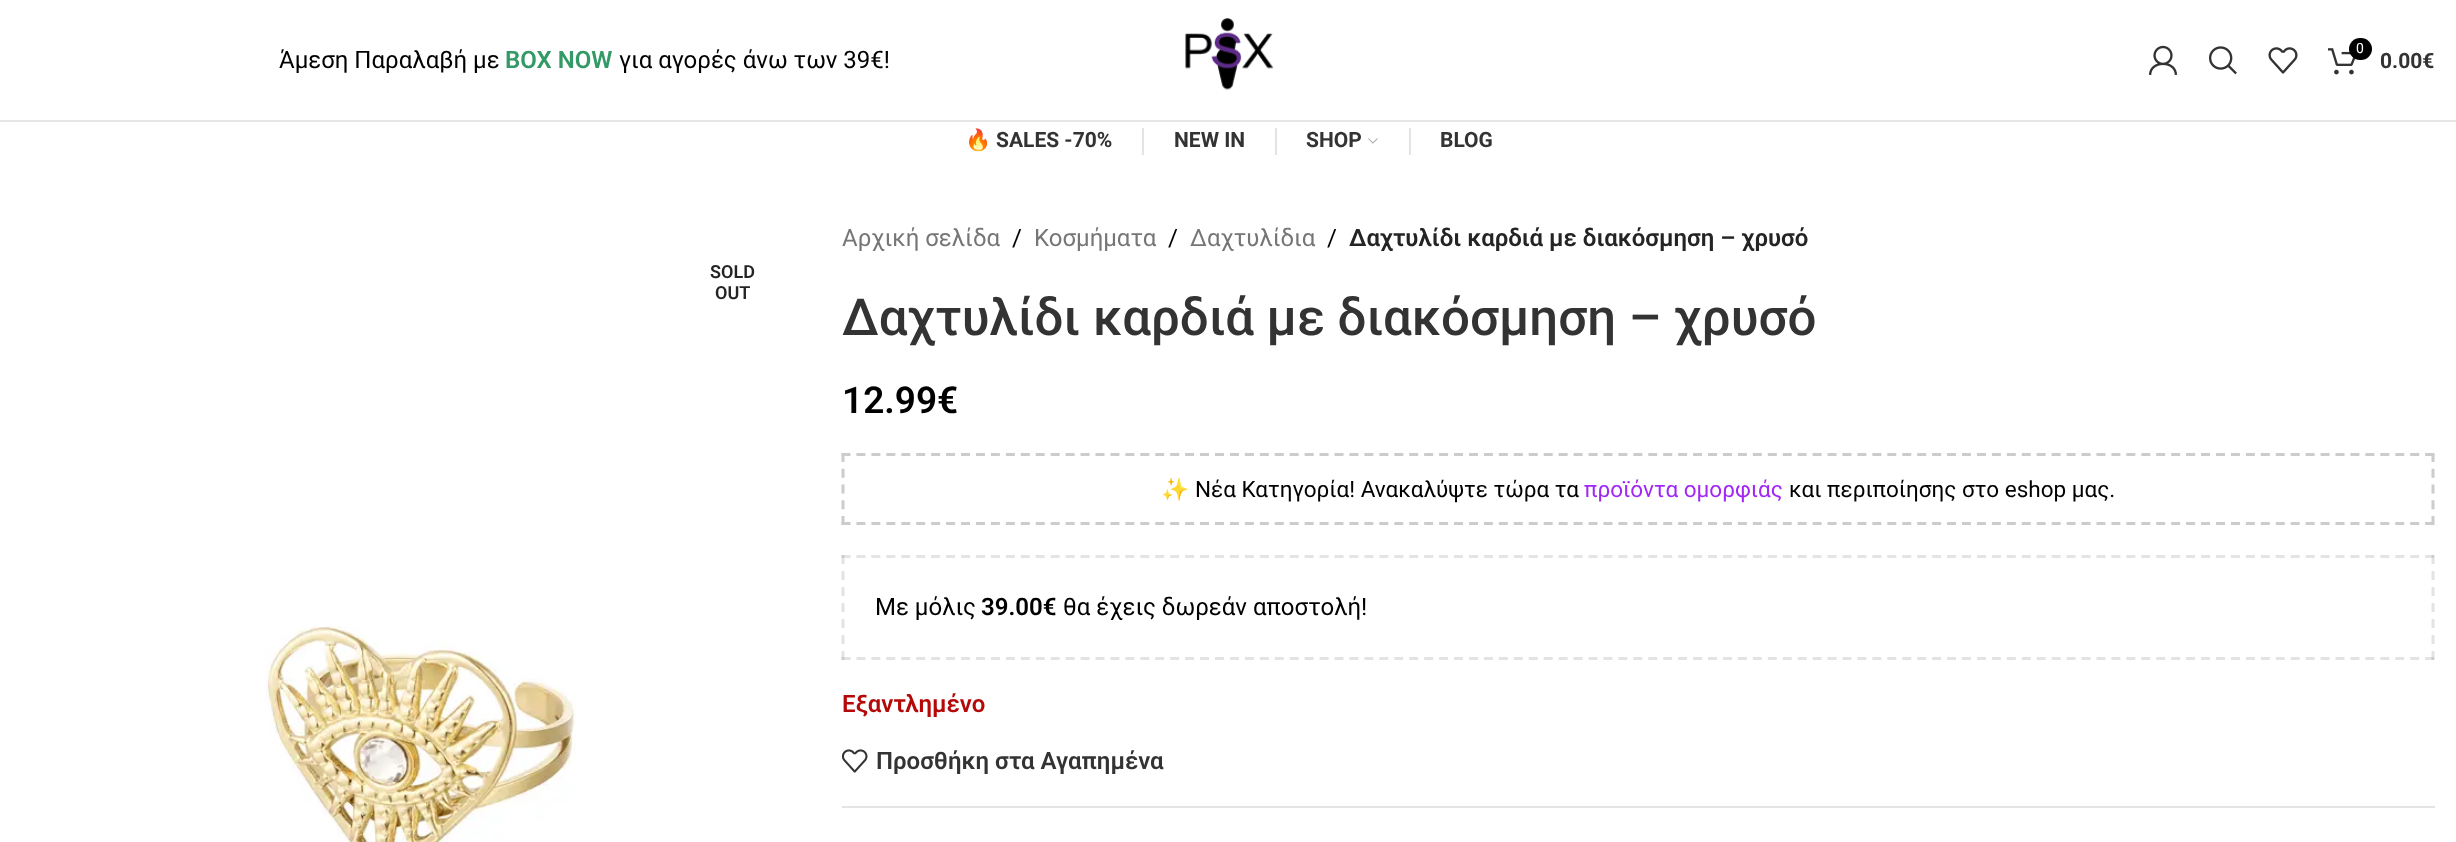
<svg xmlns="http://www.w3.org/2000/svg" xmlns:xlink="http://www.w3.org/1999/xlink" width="2456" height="842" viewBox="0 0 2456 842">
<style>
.cls-1{font:24px Roboto;fill:#000000}
.cls-2{font:600 24px Roboto;fill:#339966}
.cls-3{font:14px Roboto;fill:#ffffff}
.cls-4{font:bold 21px Roboto;fill:#333333}
.cls-5{font:bold 21px Noto Color Emoji;fill:#333333}
.cls-6{font:600 18px Roboto;fill:#242424}
.cls-7{font:24px Roboto;fill:#767676}
.cls-8{font:600 24px Roboto;fill:#242424}
.cls-9{font:500 51px Roboto;fill:#333333}
.cls-10{font:600 37px Roboto;fill:#000000}
.cls-11{font:22.5px Noto Color Emoji;fill:#000000}
.cls-12{font:22.5px Roboto;fill:#000000}
.cls-13{font:22.5px Roboto;fill:#a227f4}
.cls-14{font:600 24px Roboto;fill:#000000}
.cls-15{font:600 24px Roboto;fill:#b50808}
.cls-16{font:600 24px Roboto;fill:#333333}
</style>
<rect width="100%" height="100%" fill="#ffffff"/>
<rect fill="#e6e6e6" x="0" y="120" width="2456" height="2"/>
<image xlink:href="image0.png" x="1185" y="18" width="89" height="72"/>
<image xlink:href="image1.png" x="2149" y="45" width="28" height="30"/>
<image xlink:href="image2.png" x="2209" y="46" width="28" height="29"/>
<image xlink:href="image3.png" x="2268" y="47" width="30" height="27"/>
<image xlink:href="image4.png" x="2328" y="48" width="28" height="27"/>
<rect fill="#000000" x="2349" y="38" width="23" height="22" rx="11"/>
<rect fill="#e4e4e4" x="1142" y="128" width="2" height="27"/>
<rect fill="#e4e4e4" x="1275" y="128" width="2" height="27"/>
<image xlink:href="image5.png" x="1368" y="138" width="10" height="6"/>
<rect fill="#e4e4e4" x="1409" y="128" width="2" height="27"/>
<image xlink:href="image6.png" x="265" y="626" width="311" height="216"/>
<path fill="none" stroke="#cccccc" stroke-width="3" stroke-dasharray="9 5.94" d="M841.5 454.5H2434.5"/>
<path fill="none" stroke="#cccccc" stroke-width="3" stroke-dasharray="9 6.75" d="M2433 453V525"/>
<path fill="none" stroke="#cccccc" stroke-width="3" stroke-dasharray="9 5.94" d="M841.5 523.5H2434.5"/>
<path fill="none" stroke="#cccccc" stroke-width="3" stroke-dasharray="9 6.75" d="M843 453V525"/>
<path fill="none" stroke="#e4e4e4" stroke-width="3" stroke-dasharray="9 5.94" d="M841.5 556.5H2434.5"/>
<path fill="none" stroke="#000000" stroke-opacity="0.11" stroke-width="3" stroke-dasharray="9 7" d="M2433 555V660"/>
<path fill="none" stroke="#000000" stroke-opacity="0.11" stroke-width="3" stroke-dasharray="9 5.94" d="M841.5 658.5H2434.5"/>
<path fill="none" stroke="#000000" stroke-opacity="0.11" stroke-width="3" stroke-dasharray="9 7" d="M843 555V660"/>
<image xlink:href="image7.png" x="841" y="749" width="27" height="24"/>
<rect fill="#e4e4e4" x="842" y="806" width="1593" height="2"/>
<text class="cls-1" x="279" y="68">Άμεση Παραλαβή με</text>
<text class="cls-2" x="505" y="68">BOX NOW</text>
<text class="cls-1" x="619" y="68">για αγορές άνω των 39€!</text>
<text class="cls-3" x="2356" y="53">0</text>
<text class="cls-4" x="2380" y="68">0.00€</text>
<text class="cls-5" x="965" y="147">🔥</text>
<text class="cls-4" x="996" y="147">SALES -70%</text>
<text class="cls-4" x="1174" y="147">ΝEW IN</text>
<text class="cls-4" x="1306" y="147">SHOP</text>
<text class="cls-4" x="1440" y="147">BLOG</text>
<text class="cls-6" x="710" y="278">SOLD</text>
<text class="cls-6" x="715" y="299">OUT</text>
<text class="cls-7" x="842" y="246">Αρχική σελίδα</text>
<text class="cls-1" x="1012" y="246">/</text>
<text class="cls-7" x="1034" y="246">Κοσμήματα</text>
<text class="cls-1" x="1168" y="246">/</text>
<text class="cls-7" x="1190" y="246">Δαχτυλίδια</text>
<text class="cls-1" x="1327" y="246">/</text>
<text class="cls-8" x="1349" y="246">Δαχτυλίδι καρδιά με διακόσμηση – χρυσό</text>
<text class="cls-9" x="842" y="335">Δαχτυλίδι καρδιά με διακόσμηση – χρυσό</text>
<text class="cls-10" x="842" y="413">12.99€</text>
<text class="cls-11" x="1161" y="497">✨</text>
<text class="cls-12" x="1195" y="497">Νέα Κατηγορία! Ανακαλύψτε τώρα τα</text>
<text class="cls-13" x="1584" y="497">προϊόντα ομορφιάς</text>
<text class="cls-12" x="1789" y="497">και περιποίησης στο eshop μας.</text>
<text class="cls-1" x="875" y="615">Με μόλις</text>
<text class="cls-14" x="981" y="615">39.00€</text>
<text class="cls-1" x="1063" y="615">θα έχεις δωρεάν αποστολή!</text>
<text class="cls-15" x="842" y="712">Εξαντλημένο</text>
<text class="cls-16" x="876" y="769">Προσθήκη στα Αγαπημένα</text>
</svg>
